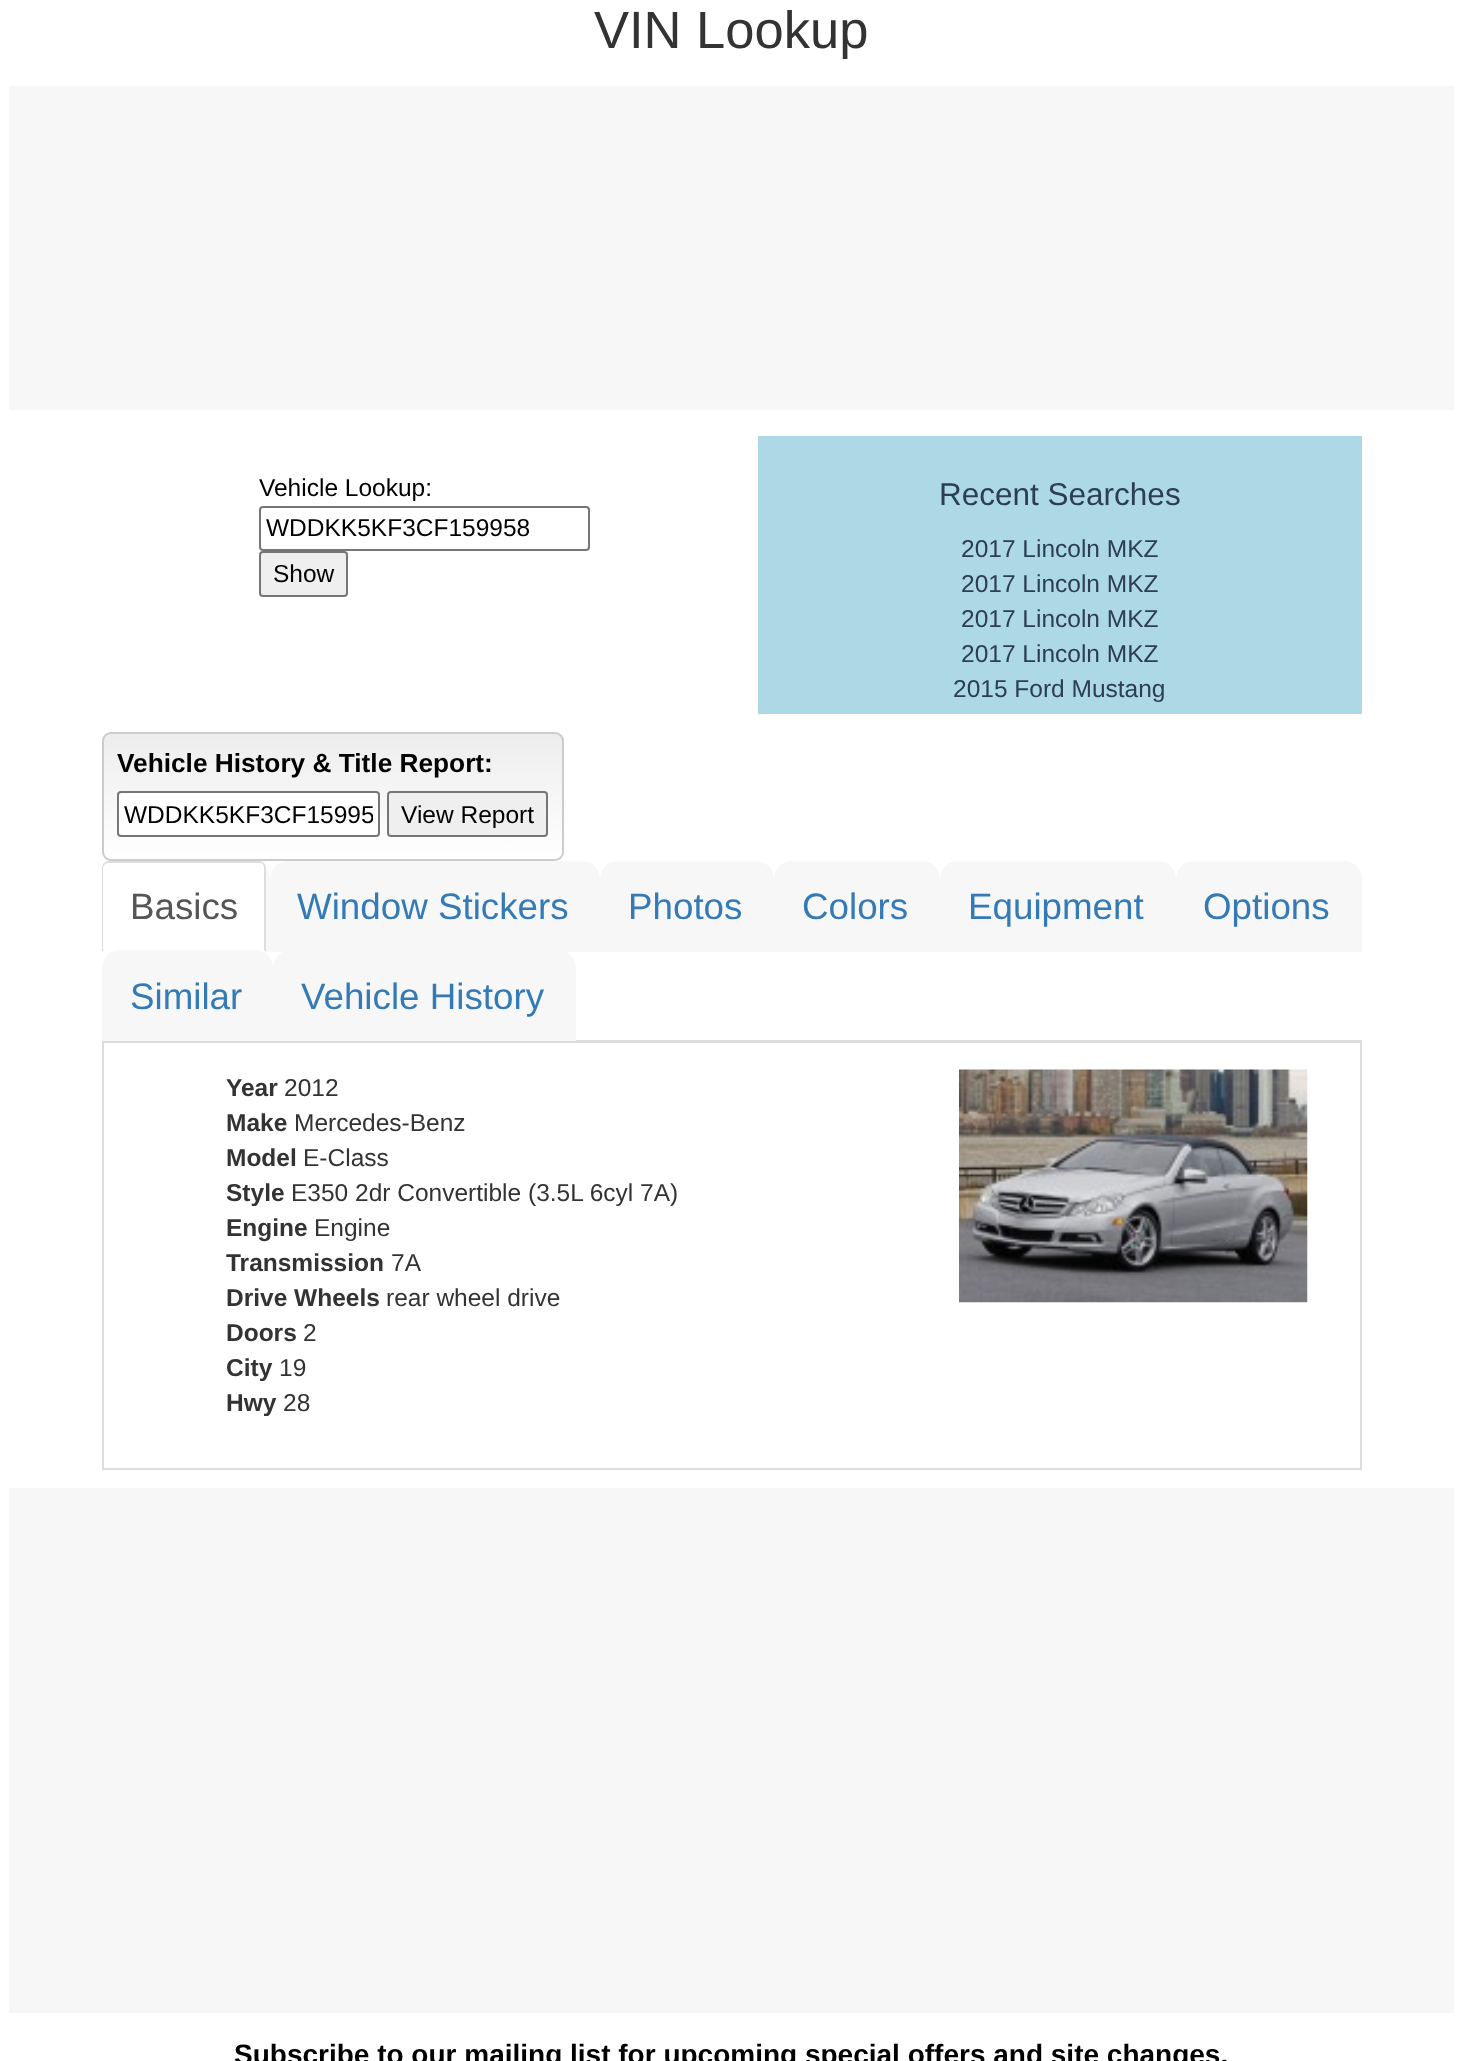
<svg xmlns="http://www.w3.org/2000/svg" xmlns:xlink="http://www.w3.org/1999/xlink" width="1463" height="2061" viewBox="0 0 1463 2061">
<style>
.cls-1{font:52.5px Liberation Sans;fill:#333333}
.cls-2{font:24.5px Liberation Sans;fill:#000000}
.cls-3{font:31.5px Liberation Sans;fill:#2c3e50}
.cls-4{font:24.5px Liberation Sans;fill:#2c3e50}
.cls-5{font:bold 26.25px Liberation Sans;fill:#000000}
.cls-6{font:36.75px Liberation Sans;fill:#555555}
.cls-7{font:36.75px Liberation Sans;fill:#337ab7}
.cls-8{font:bold 24.5px Liberation Sans;fill:#333333}
.cls-9{font:24.5px Liberation Sans;fill:#333333}
.cls-10{font:bold 28px Liberation Sans;fill:#000000}
</style>
<defs>
<clipPath id="clip1"><rect x="102" y="732" width="462" height="129" rx="9"/></clipPath>
<linearGradient id="g1" gradientUnits="userSpaceOnUse" x1="333" y1="733" x2="333" y2="859"><stop offset="0" stop-color="#ededed"/><stop offset="1" stop-color="#ffffff"/></linearGradient>
<clipPath id="clip2"><rect x="124" y="796" width="249" height="35"/></clipPath>
</defs>
<rect width="100%" height="100%" fill="#ffffff"/>
<rect fill="#f7f7f7" x="9" y="86" width="1445" height="324"/>
<rect fill="none" stroke="#767676" stroke-width="2" x="260" y="507" width="329" height="43" rx="3"/>
<rect fill="#efefef" stroke="#767676" stroke-width="2" x="260" y="552" width="87" height="44" rx="3"/>
<rect fill="#add8e6" x="758" y="436" width="604" height="278"/>
<g clip-path="url(#clip1)">
<rect fill="url(#g1)" x="102" y="733" width="462" height="126"/>
</g>
<rect fill="none" stroke="#cccccc" stroke-width="2" x="103" y="733" width="460" height="127" rx="8"/>
<rect fill="#ffffff" stroke="#767676" stroke-width="2" x="118" y="792" width="261" height="44" rx="3"/>
<rect fill="#efefef" stroke="#767676" stroke-width="2" x="388" y="792" width="159" height="44" rx="3"/>
<rect fill="#dddddd" x="576" y="1040" width="786" height="1"/>
<path fill="#f7f7f7" d="M120 861H252C262 861 270 869 270 879V952H102V879C102 869 110 861 120 861Z"/>
<path fill="#ffffff" d="M109 861H259C263 861 266 864 266 868V952H102V868C102 864 105 861 109 861Z"/>
<path fill="#dddddd" d="M108 861C106 861 105 862 104 863L105 864L108 863H259C260 863 262 863 263 864L264 863C263 862 261 861 259 861Z"/>
<path fill="#dddddd" d="M266 952V868C266 866 265 864 264 863L263 864L264 867V950Z"/>
<path fill="#dddddd" d="M104 863C103 864 102 866 102 868V952L104 950H103V867L105 864Z"/>
<path fill="#f7f7f7" d="M288 861H582C592 861 600 869 600 879V952H270V879C270 869 278 861 288 861Z"/>
<path fill="#f7f7f7" d="M618 861H756C766 861 774 869 774 879V952H600V879C600 869 608 861 618 861Z"/>
<path fill="#f7f7f7" d="M792 861H922C932 861 940 869 940 879V952H774V879C774 869 782 861 792 861Z"/>
<path fill="#f7f7f7" d="M958 861H1158C1168 861 1176 869 1176 879V952H940V879C940 869 948 861 958 861Z"/>
<path fill="#f7f7f7" d="M1194 861H1344C1354 861 1362 869 1362 879V952H1176V879C1176 869 1184 861 1194 861Z"/>
<path fill="#f7f7f7" d="M120 950H255C265 950 273 958 273 968V1041H102V968C102 958 110 950 120 950Z"/>
<path fill="#f7f7f7" d="M291 950H558C568 950 576 958 576 968V1041H273V968C273 958 281 950 291 950Z"/>
<rect fill="none" stroke="#dddddd" stroke-width="2" x="103" y="1042" width="1258" height="427"/>
<image xlink:href="image0.png" x="959" y="1069" width="349" height="234"/>
<rect fill="#f7f7f7" x="9" y="1488" width="1445" height="525"/>
<text class="cls-1" x="594" y="48">VIN Lookup</text>
<text class="cls-2" x="259" y="496">Vehicle Lookup:</text>
<text class="cls-2" x="266" y="536">WDDKK5KF3CF159958</text>
<text class="cls-2" x="273" y="582">Show</text>
<text class="cls-3" x="939" y="505">Recent Searches</text>
<text class="cls-4"><tspan x="961" y="557">2017 Lincoln MKZ</tspan><tspan x="961" y="592">2017 Lincoln MKZ</tspan><tspan x="961" y="627">2017 Lincoln MKZ</tspan><tspan x="961" y="662">2017 Lincoln MKZ</tspan></text>
<text class="cls-4" x="953" y="697">2015 Ford Mustang</text>
<text class="cls-5" x="117" y="772">Vehicle History &amp; Title Report:</text>
<g clip-path="url(#clip2)">
<text class="cls-2" x="124" y="823">WDDKK5KF3CF15995</text>
</g>
<text class="cls-2" x="401" y="823">View Report</text>
<text class="cls-6" x="130" y="919">Basics</text>
<text class="cls-7" x="297" y="919">Window Stickers</text>
<text class="cls-7" x="628" y="919">Photos</text>
<text class="cls-7" x="802" y="919">Colors</text>
<text class="cls-7" x="968" y="919">Equipment</text>
<text class="cls-7" x="1203" y="919">Options</text>
<text class="cls-7" x="130" y="1009">Similar</text>
<text class="cls-7" x="301" y="1009">Vehicle History</text>
<text class="cls-8" x="226" y="1096">Year</text>
<text class="cls-9" x="284" y="1096">2012</text>
<text class="cls-8" x="226" y="1131">Make</text>
<text class="cls-9" x="294" y="1131">Mercedes-Benz</text>
<text class="cls-8" x="226" y="1166">Model</text>
<text class="cls-9" x="303" y="1166">E-Class</text>
<text class="cls-8" x="226" y="1201">Style</text>
<text class="cls-9" x="291" y="1201">E350 2dr Convertible (3.5L 6cyl 7A)</text>
<text class="cls-8" x="226" y="1236">Engine</text>
<text class="cls-9" x="314" y="1236">Engine</text>
<text class="cls-8" x="226" y="1271">Transmission</text>
<text class="cls-9" x="391" y="1271">7A</text>
<text class="cls-8" x="226" y="1306">Drive Wheels</text>
<text class="cls-9" x="386" y="1306">rear wheel drive</text>
<text class="cls-8" x="226" y="1341">Doors</text>
<text class="cls-9" x="303" y="1341">2</text>
<text class="cls-8" x="226" y="1376">City</text>
<text class="cls-9" x="279" y="1376">19</text>
<text class="cls-8" x="226" y="1411">Hwy</text>
<text class="cls-9" x="283" y="1411">28</text>
<text class="cls-10" x="234" y="2064">Subscribe to our mailing list for upcoming special offers and site changes.</text>
</svg>
